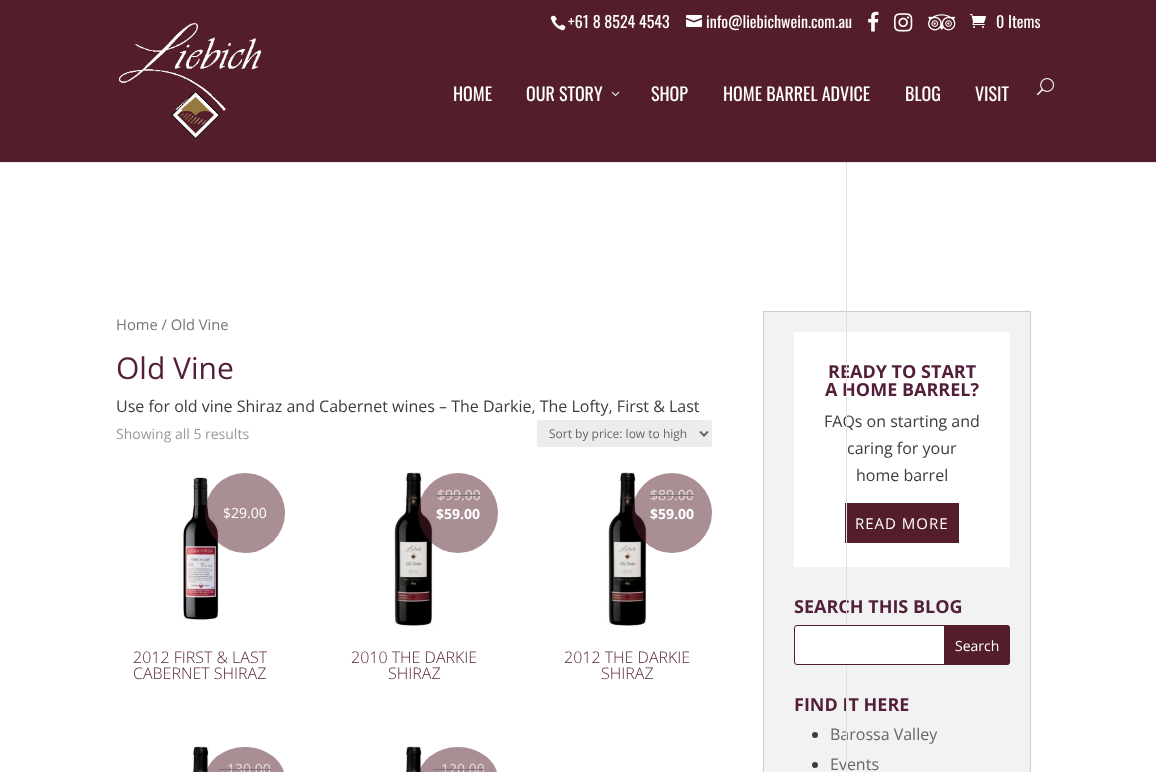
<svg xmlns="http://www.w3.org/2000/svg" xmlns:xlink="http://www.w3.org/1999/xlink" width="1156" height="772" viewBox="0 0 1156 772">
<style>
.cls-1{font:14.75px Open Sans;fill:#767676}
.cls-2{font:30px Open Sans;fill:#531e39}
.cls-3{font:16px Open Sans;fill:#383d42}
.cls-4{font:14px Open Sans;fill:#999999}
.cls-5{font:12px Open Sans;fill:#666666}
.cls-6{font:14px Open Sans;fill:#ffffff}
.cls-7{font:300 16px Open Sans;fill:#531e39}
.cls-8{font:14px Open Sans;fill:#e5dddf}
.cls-9{font:bold 14px Open Sans;fill:#ffffff}
.cls-10{font:bold 18px Open Sans;fill:#531e39}
.cls-11{font:15px Open Sans;letter-spacing:1px;fill:#ffffff}
.cls-12{font:16px Open Sans;fill:#666666}
.cls-13{font:18px Oswald;fill:#ffffff}
.cls-14{font:16px Oswald;fill:#ffffff}
</style>
<rect width="100%" height="100%" fill="#ffffff"/>
<rect fill="#e6e6e6" x="0" y="162" width="1156" height="1"/>
<rect fill="#ececec" x="537" y="420" width="175" height="27" rx="3"/>
<path fill="none" stroke="#666666" stroke-width="2" d="M700 431.5L704 435.5L708 431.5"/>
<image xlink:href="image9.png" x="179" y="477" width="41" height="143"/>
<circle fill="#531e29" fill-opacity="0.5" cx="245" cy="513" r="40"/>
<image xlink:href="image10.png" x="393" y="472" width="40" height="155"/>
<circle fill="#531e29" fill-opacity="0.5" cx="458" cy="513" r="40"/>
<image xlink:href="image10.png" x="607" y="472" width="40" height="155"/>
<circle fill="#531e29" fill-opacity="0.5" cx="672" cy="513" r="40"/>
<image xlink:href="image11.png" x="192" y="746" width="17" height="26"/>
<rect fill="#531e29" fill-opacity="0.5" x="205" y="747" width="80" height="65" rx="40"/>
<rect fill="#7a7274" x="219" y="769" width="8" height="1"/>
<image xlink:href="image11.png" x="405" y="746" width="17" height="26"/>
<rect fill="#531e29" fill-opacity="0.5" x="418" y="747" width="80" height="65" rx="40"/>
<rect fill="#7a7274" x="433" y="769" width="8" height="1"/>
<rect fill="#f2f2f2" stroke="#cccccc" x="763.5" y="311.5" width="267" height="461"/>
<rect fill="#ffffff" x="794" y="332" width="216" height="235"/>
<rect fill="#531e29" x="845" y="503" width="114" height="40"/>
<circle fill="#383d42" cx="815" cy="735" r="3"/>
<circle fill="#383d42" cx="815" cy="765" r="3"/>
<text class="cls-1" x="116" y="330">Home / Old Vine</text>
<text class="cls-2" x="116" y="379">Old Vine</text>
<text class="cls-3" x="116" y="412">Use for old vine Shiraz and Cabernet wines – The Darkie, The Lofty, First &amp; Last</text>
<text class="cls-4" x="116" y="439">Showing all 5 results</text>
<text class="cls-5" x="549" y="438">Sort by price: low to high</text>
<text class="cls-6" x="223" y="518">$29.00</text>
<text class="cls-7"><tspan x="133" y="663">2012 FIRST &amp; LAST</tspan><tspan x="133" y="679">CABERNET SHIRAZ</tspan></text>
<text class="cls-8" x="437" y="500">$99.00</text>
<rect fill="#7a7274" x="437" y="495" width="43" height="1"/>
<text class="cls-9" x="436" y="519">$59.00</text>
<text class="cls-7" x="351" y="663">2010 THE DARKIE</text>
<text class="cls-7" x="388" y="679">SHIRAZ</text>
<text class="cls-8" x="650" y="500">$89.00</text>
<rect fill="#7a7274" x="650" y="495" width="44" height="1"/>
<text class="cls-9" x="650" y="519">$59.00</text>
<text class="cls-7" x="564" y="663">2012 THE DARKIE</text>
<text class="cls-7" x="601" y="679">SHIRAZ</text>
<text class="cls-8" x="227" y="774">130.00</text>
<rect fill="#7a7274" x="227" y="769" width="44" height="1"/>
<text class="cls-8" x="441" y="774">120.00</text>
<rect fill="#7a7274" x="441" y="769" width="43" height="1"/>
<text class="cls-10" x="828" y="378">READY TO START</text>
<text class="cls-10" x="825" y="396">A HOME BARREL?</text>
<text class="cls-3" x="824" y="427">FAQs on starting and</text>
<text class="cls-3" x="847" y="454">caring for your</text>
<text class="cls-3" x="856" y="481">home barrel</text>
<text class="cls-11" x="855" y="529">READ MORE</text>
<text class="cls-10" x="794" y="613">SEARCH THIS BLOG</text>
<text class="cls-10" x="794" y="711">FIND IT HERE</text>
<text class="cls-12"><tspan x="830" y="740">Barossa Valley</tspan><tspan x="830" y="770">Events</tspan></text>
<rect fill="#e2e2e2" x="846" y="161" width="1" height="611"/>
<rect fill="#531e29" x="0" y="0" width="1156" height="162"/>
<image xlink:href="image8.png" x="1037" y="78" width="17" height="18"/>
<text class="cls-13" x="975" y="101">VISIT</text>
<text class="cls-13" x="905" y="101">BLOG</text>
<text class="cls-13" x="723" y="101">HOME BARREL ADVICE</text>
<text class="cls-13" x="651" y="101">SHOP</text>
<image xlink:href="image7.png" x="611" y="91" width="9" height="5"/>
<text class="cls-13" x="526" y="101">OUR STORY</text>
<text class="cls-13" x="453" y="101">HOME</text>
<image xlink:href="image6.png" x="119" y="23" width="142" height="116"/>
<image xlink:href="image5.png" x="970" y="14" width="16" height="14"/>
<text class="cls-14" x="706" y="28">info@liebichwein.com.au</text>
<image xlink:href="image1.png" x="686" y="15" width="16" height="12"/>
<image xlink:href="image0.png" x="550" y="15" width="16" height="16"/>
<text class="cls-14" x="568" y="28">+61 8 8524 4543</text>
<image xlink:href="image4.png" x="928" y="14" width="28" height="17"/>
<image xlink:href="image3.png" x="894" y="13" width="19" height="19"/>
<image xlink:href="image2.png" x="868" y="11" width="11" height="21"/>
<text class="cls-14" x="996" y="28">0 Items</text>
<rect fill="#ffffff" stroke="#531e29" x="794.5" y="625.5" width="215" height="39" rx="2.5"/>
<path fill="#531e29" stroke="#531e29" d="M944.5 625.5H1007C1008.5 625.5 1009.5 626.5 1009.5 628V662C1009.5 663.5 1008.5 664.5 1007 664.5H944.5Z"/>
<text class="cls-6" x="955" y="651">Search</text>
<rect fill="#cbcbcb" x="846" y="162" width="1" height="1"/>
</svg>
